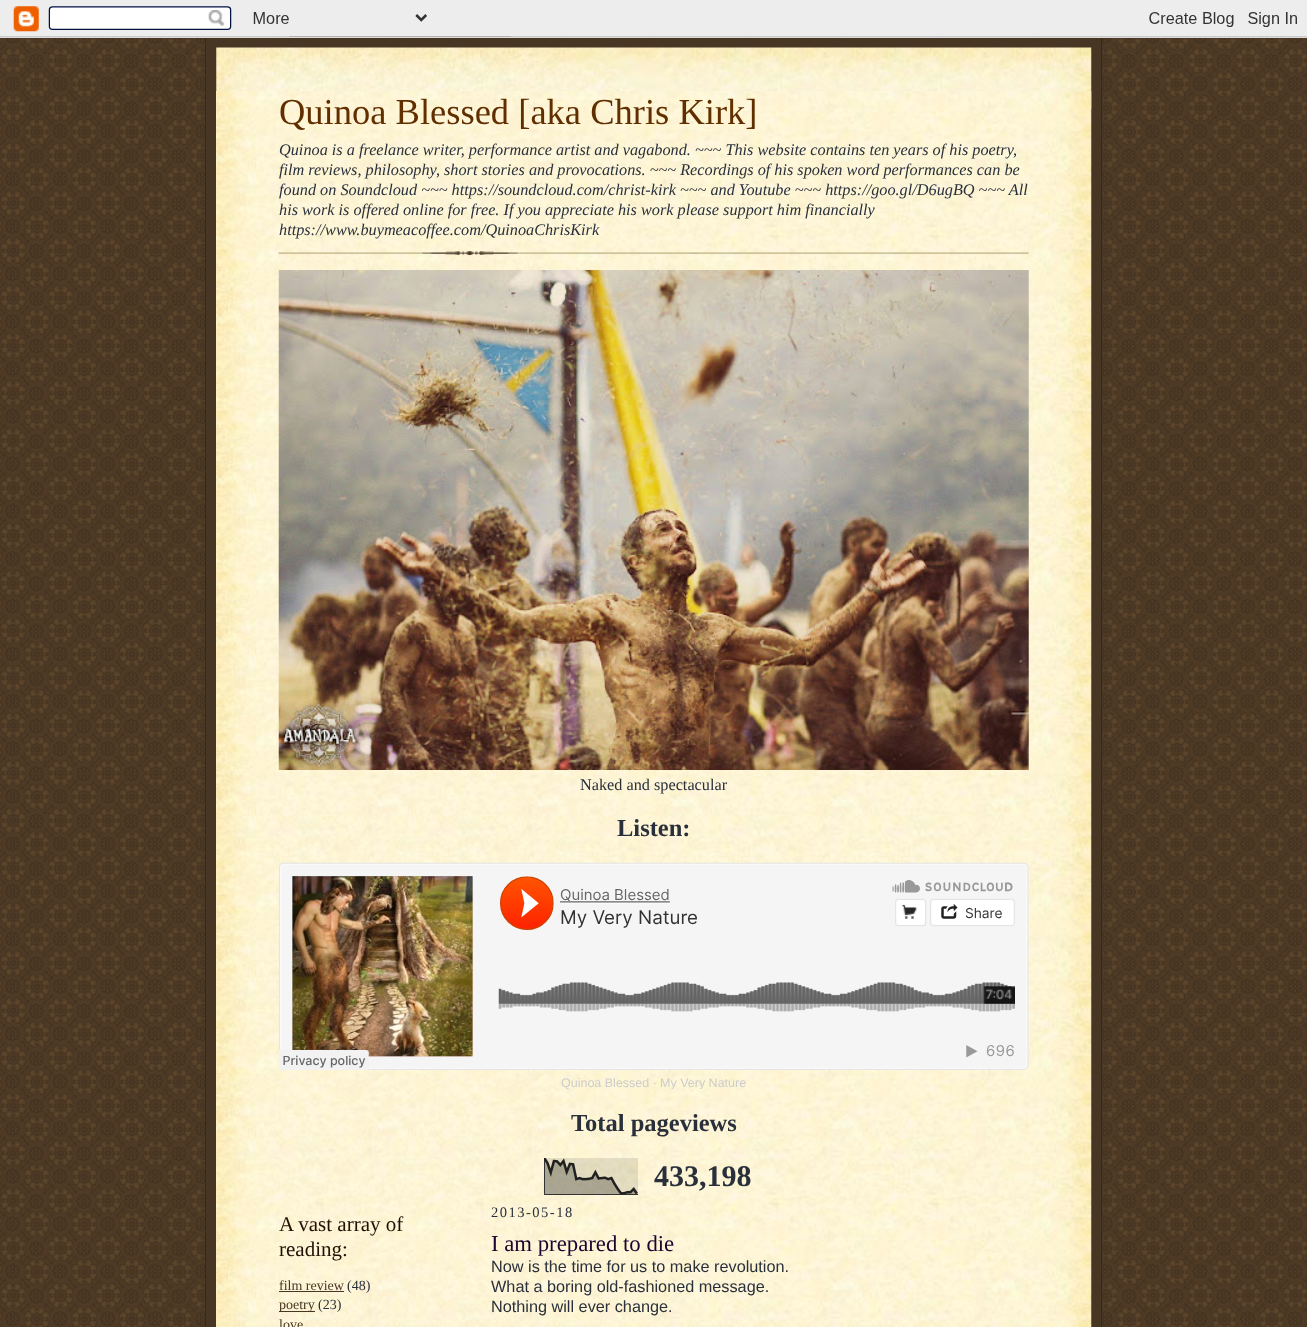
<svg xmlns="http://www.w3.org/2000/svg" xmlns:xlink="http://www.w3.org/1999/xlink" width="1307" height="1327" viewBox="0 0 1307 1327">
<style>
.cls-1{font:36.5px Liberation Serif;fill:#612e00}
.cls-2{font:italic 16.25px Liberation Serif;fill:#29303b}
.cls-3{font:16.25px Liberation Serif;fill:#29303b}
.cls-4{font:bold 24.5px Liberation Serif;fill:#29303b}
.cls-5{font:12.5px Liberation Sans;fill:#cccccc}
.cls-6{font:bold 30px Liberation Serif;fill:#29303b}
.cls-7{font:21px Liberation Serif;fill:#211104}
.cls-8{font:14px Liberation Serif;fill:#473624}
.cls-9{font:14px Liberation Serif;fill:#29303b}
.cls-10{font:14.5px Liberation Serif;letter-spacing:1.5px;fill:#29303b}
.cls-11{font:22.75px Liberation Serif;fill:#1b0431}
.cls-12{font:16.25px Liberation Sans;fill:#29303b}
</style>
<defs>
<clipPath id="clip1"><rect x="279" y="1075" width="750" height="14"/></clipPath>
</defs>
<rect width="100%" height="100%" fill="#ffffff"/>
<image xlink:href="image0.png" x="0" y="36" width="1307" height="1291"/>
<image xlink:href="image1.png" x="0" y="0" width="1307" height="38"/>
<rect fill="#473624" x="206" y="38" width="897" height="1289"/>
<rect fill="#332a24" x="1101" y="38" width="1" height="1289"/>
<rect fill="#332a24" x="205" y="38" width="1" height="1289"/>
<image xlink:href="image2.png" x="216" y="47" width="876" height="62"/>
<rect fill="#fff3db" x="216" y="91" width="875" height="1236"/>
<image xlink:href="image3.png" x="216" y="91" width="876" height="1236"/>
<image xlink:href="image4.png" x="278" y="251" width="751" height="4"/>
<image xlink:href="image5.png" x="278" y="270" width="751" height="500"/>
<image xlink:href="image6.png" x="278" y="862" width="751" height="208"/>
<image xlink:href="image7.png" x="544" y="1158" width="94" height="37"/>
<rect fill="#473624" x="279" y="1291" width="65" height="1"/>
<rect fill="#473624" x="279" y="1311" width="36" height="1"/>
<text class="cls-1" x="279" y="124">Quinoa Blessed [aka Chris Kirk]</text>
<text class="cls-2"><tspan x="279" y="155">Quinoa is a freelance writer, performance artist and vagabond. ~~~ This website contains ten years of his poetry,</tspan><tspan x="279" y="175">film reviews, philosophy, short stories and provocations. ~~~ Recordings of his spoken word performances can be</tspan><tspan x="279" y="195">found on Soundcloud ~~~ https://soundcloud.com/christ-kirk ~~~ and Youtube ~~~ https://goo.gl/D6ugBQ ~~~ All</tspan><tspan x="279" y="215">his work is offered online for free. If you appreciate his work please support him financially</tspan><tspan x="279" y="235">https://www.buymeacoffee.com/QuinoaChrisKirk</tspan></text>
<text class="cls-3" x="580" y="790">Naked and spectacular</text>
<text class="cls-4" x="617" y="836">Listen:</text>
<text class="cls-5" x="561" y="1087">Quinoa Blessed ·</text>
<g clip-path="url(#clip1)">
<text class="cls-5" x="660" y="1087">My Very Nature</text>
</g>
<text class="cls-4" x="571" y="1131">Total pageviews</text>
<text class="cls-6" x="654" y="1186">433,198</text>
<text class="cls-7"><tspan x="279" y="1231">A vast array of</tspan><tspan x="279" y="1256">reading:</tspan></text>
<text class="cls-8" x="279" y="1290">film review</text>
<text class="cls-9" x="347" y="1290">(48)</text>
<text class="cls-8" x="279" y="1309">poetry</text>
<text class="cls-9" x="318" y="1309">(23)</text>
<text class="cls-8" x="279" y="1329">love</text>
<text class="cls-10" x="491" y="1217">2013-05-18</text>
<text class="cls-11" x="491" y="1251">I am prepared to die</text>
<text class="cls-12"><tspan x="491" y="1272">Now is the time for us to make revolution.</tspan><tspan x="491" y="1292">What a boring old-fashioned message.</tspan><tspan x="491" y="1312">Nothing will ever change.</tspan></text>
</svg>
